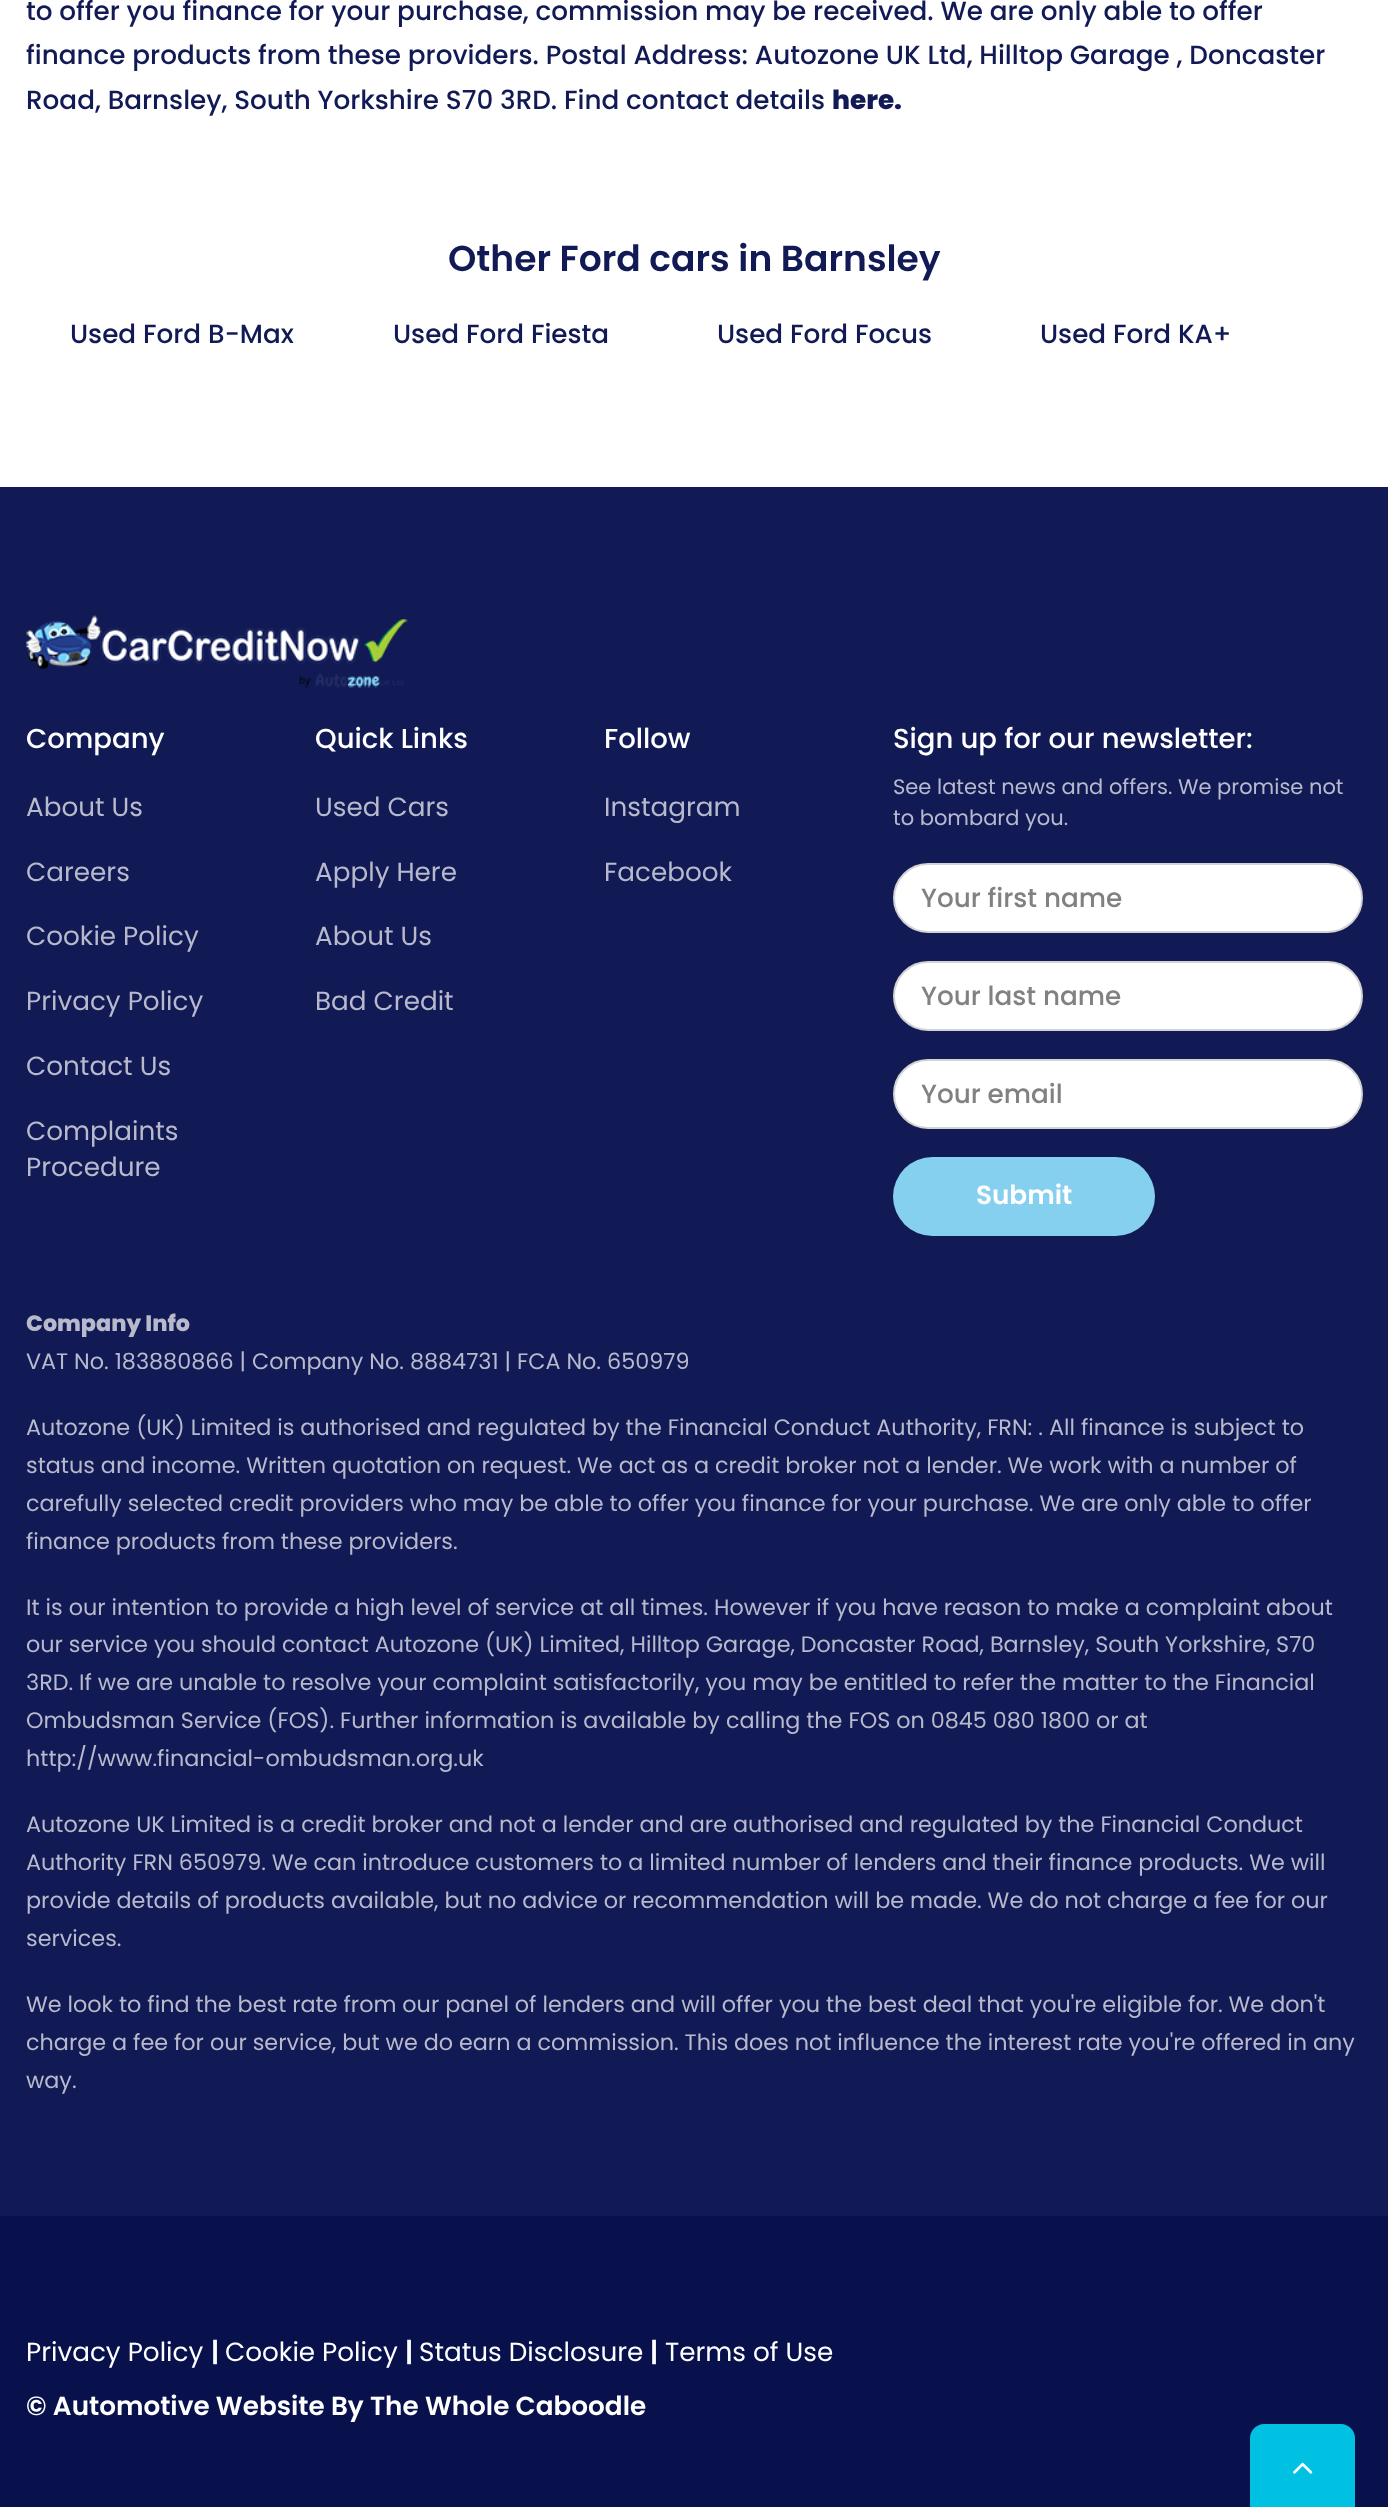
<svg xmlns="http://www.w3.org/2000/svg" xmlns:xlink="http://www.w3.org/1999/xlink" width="1388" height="2507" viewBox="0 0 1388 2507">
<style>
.cls-1{font:500 26.25px Poppins;fill:#111a55}
.cls-2{font:800 26.25px Poppins;fill:#111a55}
.cls-3{font:600 36.1px Poppins;fill:#111a55}
.cls-4{font:500 27.5px Poppins;fill:#ffffff}
.cls-5{font:26.25px Poppins;fill:#b8bacc}
.cls-6{font:21px Poppins;fill:#b8bacc}
.cls-7{font:500 26.25px Poppins;fill:#818181}
.cls-8{font:600 26.25px Poppins;fill:#ffffff}
.cls-9{font:800 22.3px Poppins;fill:#b8bacc}
.cls-10{font:22.3px Poppins;fill:#b8bacc}
.cls-11{font:26.25px Poppins;fill:#ffffff}
</style>
<rect width="100%" height="100%" fill="#ffffff"/>
<rect fill="#111a55" x="0" y="487" width="1388" height="1729"/>
<image xlink:href="image0.png" x="26" y="615" width="382" height="73"/>
<rect fill="#ffffff" stroke="#d3d3d3" stroke-width="2" x="894" y="864" width="468" height="68" rx="34"/>
<rect fill="#ffffff" stroke="#d3d3d3" stroke-width="2" x="894" y="962" width="468" height="68" rx="34"/>
<rect fill="#ffffff" stroke="#d3d3d3" stroke-width="2" x="894" y="1060" width="468" height="68" rx="34"/>
<rect fill="#85d0ef" x="893" y="1157" width="262" height="79" rx="39.5"/>
<rect fill="#08114c" x="0" y="2216" width="1388" height="291"/>
<path fill="#00c1e2" d="M1264 2424H1341C1348.5 2424 1355 2430.5 1355 2438V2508H1250V2438C1250 2430.5 1256.5 2424 1264 2424Z"/>
<image xlink:href="image1.png" x="1293" y="2462" width="20" height="12"/>
<text class="cls-1"><tspan x="26" y="20">to offer you finance for your purchase, commission may be received. We are only able to offer</tspan><tspan x="26" y="64">finance products from these providers. Postal Address: Autozone UK Ltd, Hilltop Garage , Doncaster</tspan><tspan x="26" y="109">Road, Barnsley, South Yorkshire S70 3RD. Find contact details</tspan></text>
<text class="cls-2" x="832" y="109">here.</text>
<text class="cls-3" x="448" y="271">Other Ford cars in Barnsley</text>
<text class="cls-1" x="70" y="343">Used Ford B-Max</text>
<text class="cls-1" x="393" y="343">Used Ford Fiesta</text>
<text class="cls-1" x="717" y="343">Used Ford Focus</text>
<text class="cls-1" x="1040" y="343">Used Ford KA+</text>
<text class="cls-4" x="26" y="748">Company</text>
<text class="cls-5" x="26" y="816">About Us</text>
<text class="cls-5" x="26" y="881">Careers</text>
<text class="cls-5" x="26" y="945">Cookie Policy</text>
<text class="cls-5" x="26" y="1010">Privacy Policy</text>
<text class="cls-5" x="26" y="1075">Contact Us</text>
<text class="cls-5"><tspan x="26" y="1140">Complaints</tspan><tspan x="26" y="1176">Procedure</tspan></text>
<text class="cls-4" x="315" y="748">Quick Links</text>
<text class="cls-5" x="315" y="816">Used Cars</text>
<text class="cls-5" x="315" y="881">Apply Here</text>
<text class="cls-5" x="315" y="945">About Us</text>
<text class="cls-5" x="315" y="1010">Bad Credit</text>
<text class="cls-4" x="604" y="748">Follow</text>
<text class="cls-5" x="604" y="816">Instagram</text>
<text class="cls-5" x="604" y="881">Facebook</text>
<text class="cls-4" x="893" y="748">Sign up for our newsletter:</text>
<text class="cls-6"><tspan x="893" y="794">See latest news and offers. We promise not</tspan><tspan x="893" y="825">to bombard you.</tspan></text>
<text class="cls-7" x="921" y="907">Your first name</text>
<text class="cls-7" x="921" y="1005">Your last name</text>
<text class="cls-7" x="921" y="1103">Your email</text>
<text class="cls-8" x="976" y="1204">Submit</text>
<text class="cls-9" x="26" y="1331">Company Info</text>
<text class="cls-10" x="26" y="1369">VAT No. 183880866 | Company No. 8884731 | FCA No. 650979</text>
<text class="cls-10"><tspan x="26" y="1435">Autozone (UK) Limited is authorised and regulated by the Financial Conduct Authority, FRN: . All finance is subject to</tspan><tspan x="26" y="1473">status and income. Written quotation on request. We act as a credit broker not a lender. We work with a number of</tspan><tspan x="26" y="1511">carefully selected credit providers who may be able to offer you finance for your purchase. We are only able to offer</tspan><tspan x="26" y="1549">finance products from these providers.</tspan></text>
<text class="cls-10"><tspan x="26" y="1615">It is our intention to provide a high level of service at all times. However if you have reason to make a complaint about</tspan><tspan x="26" y="1652">our service you should contact Autozone (UK) Limited, Hilltop Garage, Doncaster Road, Barnsley, South Yorkshire, S70</tspan><tspan x="26" y="1690">3RD. If we are unable to resolve your complaint satisfactorily, you may be entitled to refer the matter to the Financial</tspan><tspan x="26" y="1728">Ombudsman Service (FOS). Further information is available by calling the FOS on 0845 080 1800 or at</tspan><tspan x="26" y="1766">http://www.financial-ombudsman.org.uk</tspan></text>
<text class="cls-10"><tspan x="26" y="1832">Autozone UK Limited is a credit broker and not a lender and are authorised and regulated by the Financial Conduct</tspan><tspan x="26" y="1870">Authority FRN 650979. We can introduce customers to a limited number of lenders and their finance products. We will</tspan><tspan x="26" y="1908">provide details of products available, but no advice or recommendation will be made. We do not charge a fee for our</tspan><tspan x="26" y="1946">services.</tspan></text>
<text class="cls-10"><tspan x="26" y="2012">We look to find the best rate from our panel of lenders and will offer you the best deal that you're eligible for. We don't</tspan><tspan x="26" y="2050">charge a fee for our service, but we do earn a commission. This does not influence the interest rate you're offered in any</tspan><tspan x="26" y="2088">way.</tspan></text>
<text class="cls-11" x="26" y="2361">Privacy Policy</text>
<text class="cls-8" x="211" y="2361">|</text>
<text class="cls-11" x="225" y="2361">Cookie Policy</text>
<text class="cls-8" x="405" y="2361">|</text>
<text class="cls-11" x="419" y="2361">Status Disclosure</text>
<text class="cls-8" x="650" y="2361">|</text>
<text class="cls-11" x="665" y="2361">Terms of Use</text>
<text class="cls-8" x="26" y="2415">© Automotive Website By The Whole Caboodle</text>
</svg>
